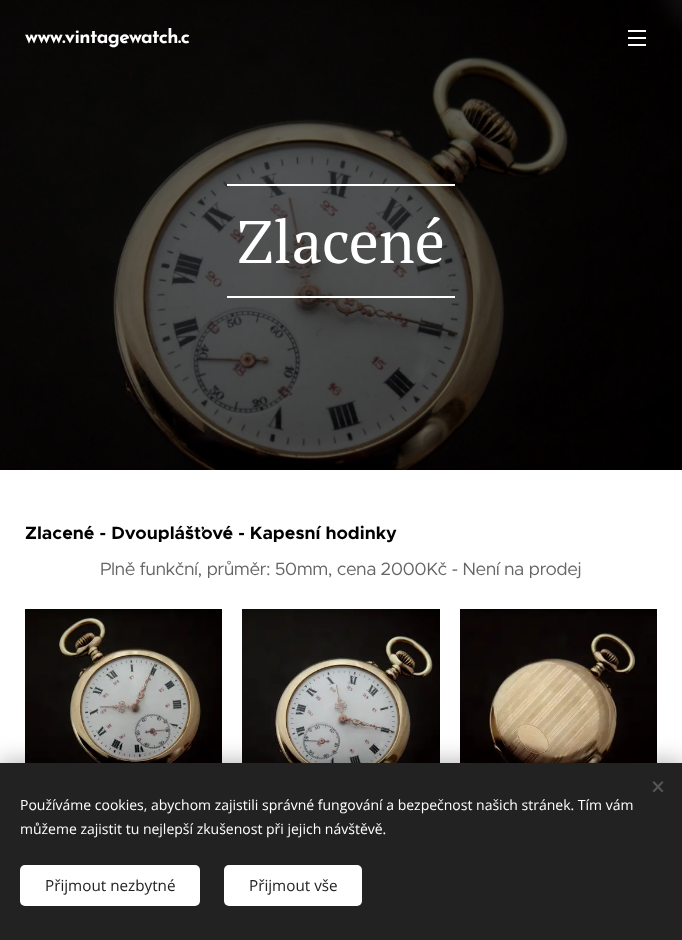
<svg xmlns="http://www.w3.org/2000/svg" xmlns:xlink="http://www.w3.org/1999/xlink" width="682" height="940" viewBox="0 0 682 940">
<style>
.cls-1{font:bold 19px Josefin Sans;letter-spacing:-0.6px;fill:#ffffff}
.cls-2{font:60px PT Serif;fill:#ffffff}
.cls-3{font:bold 18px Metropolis;fill:#000000}
.cls-4{font:18px Metropolis;letter-spacing:-0.55px;fill:#666666}
.cls-5{font:14px Open Sans;fill:#ffffff}
.cls-6{font:15.25px Open Sans;fill:#222222}
</style>
<rect width="100%" height="100%" fill="#ffffff"/>
<image xlink:href="image0.png" x="0" y="0" width="682" height="470"/>
<rect fill="#ffffff" x="628" y="37" width="18" height="2"/>
<rect fill="#ffffff" x="628" y="30" width="18" height="2"/>
<rect fill="#ffffff" x="628" y="44" width="18" height="2"/>
<rect fill="#ffffff" x="227" y="184" width="228" height="2"/>
<rect fill="#ffffff" x="227" y="296" width="228" height="2"/>
<image xlink:href="image1.png" x="25" y="609" width="197" height="154"/>
<image xlink:href="image2.png" x="242" y="609" width="198" height="154"/>
<image xlink:href="image3.png" x="460" y="609" width="197" height="154"/>
<rect fill="#000000" fill-opacity="0.33" filter="blur(12.5px)" x="0" y="763" width="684" height="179"/>
<rect fill="#222222" x="0" y="763" width="682" height="177"/>
<path fill="#555555" d="M652.5 791L662 781L663.5 782.5L654 792.5Z"/>
<path fill="#555555" d="M654 781L663.5 791L662 792.5L652.5 782.5Z"/>
<rect fill="#ffffff" x="20" y="865" width="180" height="41" rx="5"/>
<rect fill="#ffffff" x="224" y="865" width="138" height="41" rx="5"/>
<text class="cls-1" x="25" y="43">www.vintagewatch.c</text>
<text class="cls-2" x="237" y="263">Zlacené</text>
<text class="cls-3" x="25" y="539">Zlacené - Dvouplášťové - Kapesní hodinky</text>
<text class="cls-4" x="100" y="575">Plně funkční, průměr: 50mm, cena 2000Kč - Není na prodej</text>
<text class="cls-5"><tspan x="20" y="810">Používáme cookies, abychom zajistili správné fungování a bezpečnost našich stránek. Tím vám</tspan><tspan x="20" y="834">můžeme zajistit tu nejlepší zkušenost při jejich návštěvě.</tspan></text>
<text class="cls-6" x="45" y="891">Přijmout nezbytné</text>
<text class="cls-6" x="249" y="891">Přijmout vše</text>
</svg>
